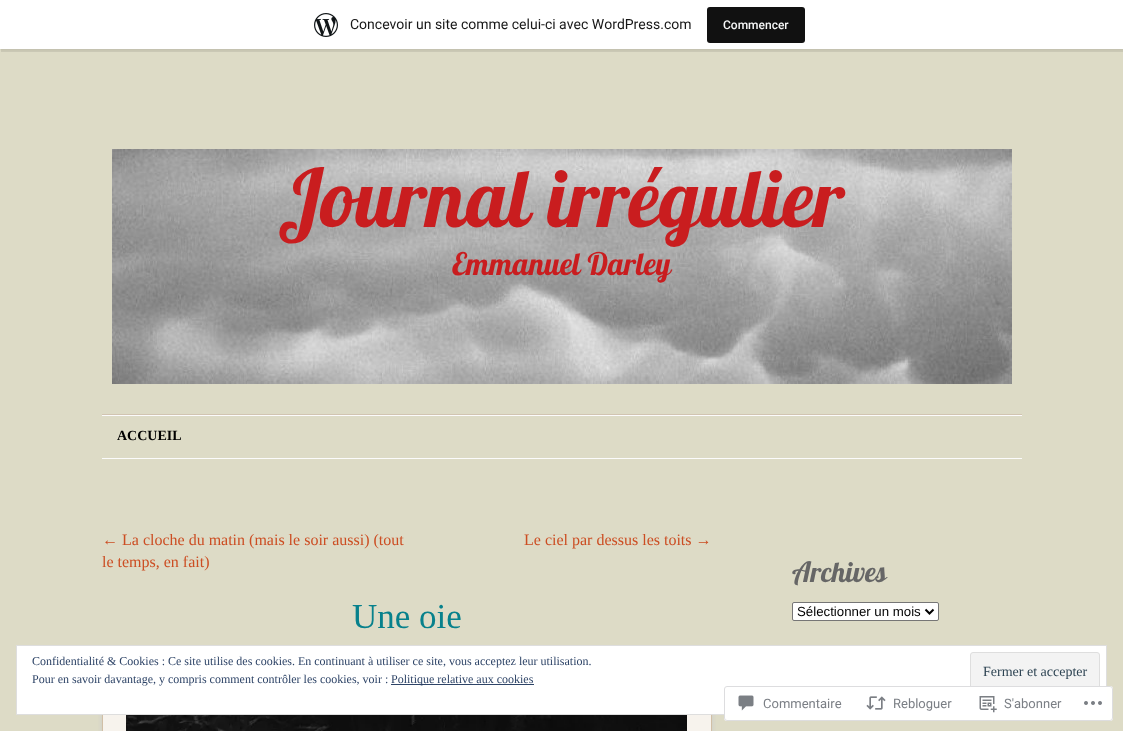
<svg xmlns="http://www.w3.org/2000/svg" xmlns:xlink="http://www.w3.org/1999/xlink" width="1123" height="731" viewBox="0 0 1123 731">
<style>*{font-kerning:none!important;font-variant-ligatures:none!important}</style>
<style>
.cls-1{font:14px Roboto;fill:#171717}
.cls-2{font:500 12px Roboto;fill:#f6f7f7}
.cls-3{font:80px Lobster;fill:#c91d1f}
.cls-4{font:31px Lobster;fill:#c91d1f}
.cls-5{font:bold 14px Liberation Serif;fill:#000000}
.cls-6{font:16px Liberation Serif;fill:#cc4d22}
.cls-7{font:35px Liberation Serif;fill:#07818c}
.cls-8{font:28px Lobster;fill:#666666}
.cls-9{font:13.25px Liberation Sans;fill:#000000}
.cls-10{font:12px Liberation Serif;fill:#2e4467}
.cls-11{font:14px Liberation Serif;fill:#2e4453}
.cls-12{font:13px Roboto;fill:#7b7f85}
</style>
<rect width="100%" height="100%" fill="#dddbc6"/>
<rect fill="#000000" fill-opacity="0.05" filter="blur(1px)" x="0" y="1" width="1123" height="49"/>
<path fill="#000000" fill-opacity="0.08" d="M1 49V52H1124V3H1123V49Z"/>
<rect fill="#ffffff" x="0" y="0" width="1123" height="49"/>
<image xlink:href="image0.png" x="314" y="13" width="24" height="24"/>
<rect fill="#111111" x="707" y="7" width="98" height="36" rx="3"/>
<image xlink:href="image1.png" x="112" y="149" width="900" height="235"/>
<image xlink:href="image2.png" x="102" y="414" width="920" height="2"/>
<rect fill="#fbfbfb" x="102" y="458" width="920" height="1"/>
<rect fill="#cccccc" filter="blur(2.5px)" x="102" y="690" width="610" height="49"/>
<rect fill="#f7f3ed" x="103" y="715" width="608" height="16"/>
<rect fill="none" stroke="#d1bfa6" x="102.5" y="689.5" width="609" height="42"/>
<image xlink:href="image3.png" x="126" y="715" width="561" height="16"/>
<rect fill="#ffffff" stroke="#767676" x="792.5" y="602.5" width="146" height="18" rx="1.5"/>
<path fill="none" stroke="#000000" stroke-width="2" d="M925.5 609.5L929.5 613.5L933.5 609.5"/>
<rect fill="#ffffff" stroke="#dedede" x="16.5" y="645.5" width="1090" height="69"/>
<rect fill="#2e4467" x="391" y="684" width="143" height="1"/>
<rect fill="#f3f3f3" stroke="#dedede" x="970.5" y="652.5" width="129" height="38" rx="2.5"/>
<rect fill="#ffffff" fill-opacity="0.98" x="724" y="686" width="389" height="35" rx="3"/>
<rect fill="none" stroke="#dcdcde" stroke-opacity="0.98" x="724.5" y="686.5" width="388" height="34" rx="2.5"/>
<image xlink:href="image4.png" x="738" y="695" width="16" height="16"/>
<image xlink:href="image5.png" x="866" y="696" width="20" height="14"/>
<image xlink:href="image6.png" x="979" y="696" width="18" height="17"/>
<image xlink:href="image7.png" x="1084" y="701" width="18" height="4"/>
<text class="cls-1" x="350" y="29">Concevoir un site comme celui-ci avec WordPress.com</text>
<text class="cls-2" x="723" y="29">Commencer</text>
<text class="cls-3" x="278" y="227">Journal irrégulier</text>
<text class="cls-4" x="452" y="275">Emmanuel Darley</text>
<text class="cls-5" x="117" y="440">ACCUEIL</text>
<text class="cls-6"><tspan x="102" y="545">← La cloche du matin (mais le soir aussi) (tout</tspan><tspan x="102" y="567">le temps, en fait)</tspan></text>
<text class="cls-6" x="524" y="545">Le ciel par dessus les toits →</text>
<text class="cls-7" x="352" y="628">Une oie</text>
<text class="cls-8" x="792" y="582">Archives</text>
<text class="cls-9" x="797" y="616">Sélectionner un mois</text>
<text class="cls-10"><tspan x="32" y="665">Confidentialité &amp; Cookies : Ce site utilise des cookies. En continuant à utiliser ce site, vous acceptez leur utilisation.</tspan><tspan x="32" y="683">Pour en savoir davantage, y compris comment contrôler les cookies, voir :</tspan></text>
<text class="cls-10" x="391" y="683">Politique relative aux cookies</text>
<text class="cls-11" x="983" y="676">Fermer et accepter</text>
<text class="cls-12" x="763" y="708">Commentaire</text>
<text class="cls-12" x="893" y="708">Rebloguer</text>
<text class="cls-12" x="1004" y="708">S'abonner</text>
</svg>
